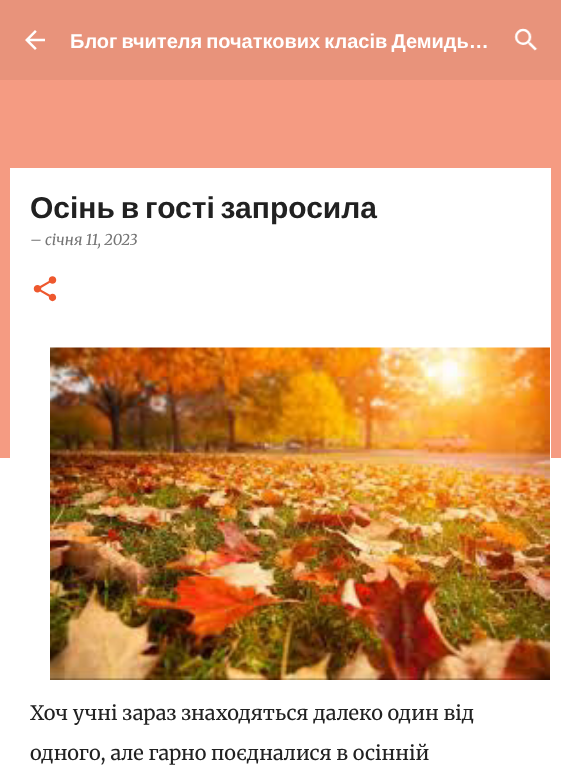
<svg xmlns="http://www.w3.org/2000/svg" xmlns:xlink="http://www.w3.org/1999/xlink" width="561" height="765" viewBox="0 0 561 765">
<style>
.cls-1{font:bold 20px Liberation Sans;fill:#ffffff}
.cls-2{font:bold 30px Liberation Sans;fill:#212121}
.cls-3{font:italic 15px Merriweather;fill:#757575}
.cls-4{font:20px Merriweather;fill:#212121}
</style>
<rect width="100%" height="100%" fill="#f59b82"/>
<rect fill="#e8937b" x="0" y="0" width="561" height="80"/>
<image xlink:href="image0.png" x="25" y="30" width="20" height="20"/>
<image xlink:href="image1.png" x="514" y="28" width="24" height="23"/>
<rect fill="#ffffff" x="0" y="458" width="561" height="307"/>
<rect fill="#ffffff" x="10" y="168" width="541" height="290"/>
<image xlink:href="image2.png" x="33" y="276" width="24" height="26"/>
<image xlink:href="image3.png" x="50" y="347" width="500" height="333"/>
<text class="cls-1" x="70" y="48" word-spacing="-1.5">Блог вчителя початкових класів Демидь…</text>
<text class="cls-2" x="30" y="218" word-spacing="-2.5">Осінь в гості запросила</text>
<text class="cls-3" x="30" y="245">– січня 11, 2023</text>
<text class="cls-4" x="30" y="720">Хоч учні зараз знаходяться далеко один від</text>
<text class="cls-4" x="30" y="760">одного, але гарно поєдналися в осінній</text>
</svg>
